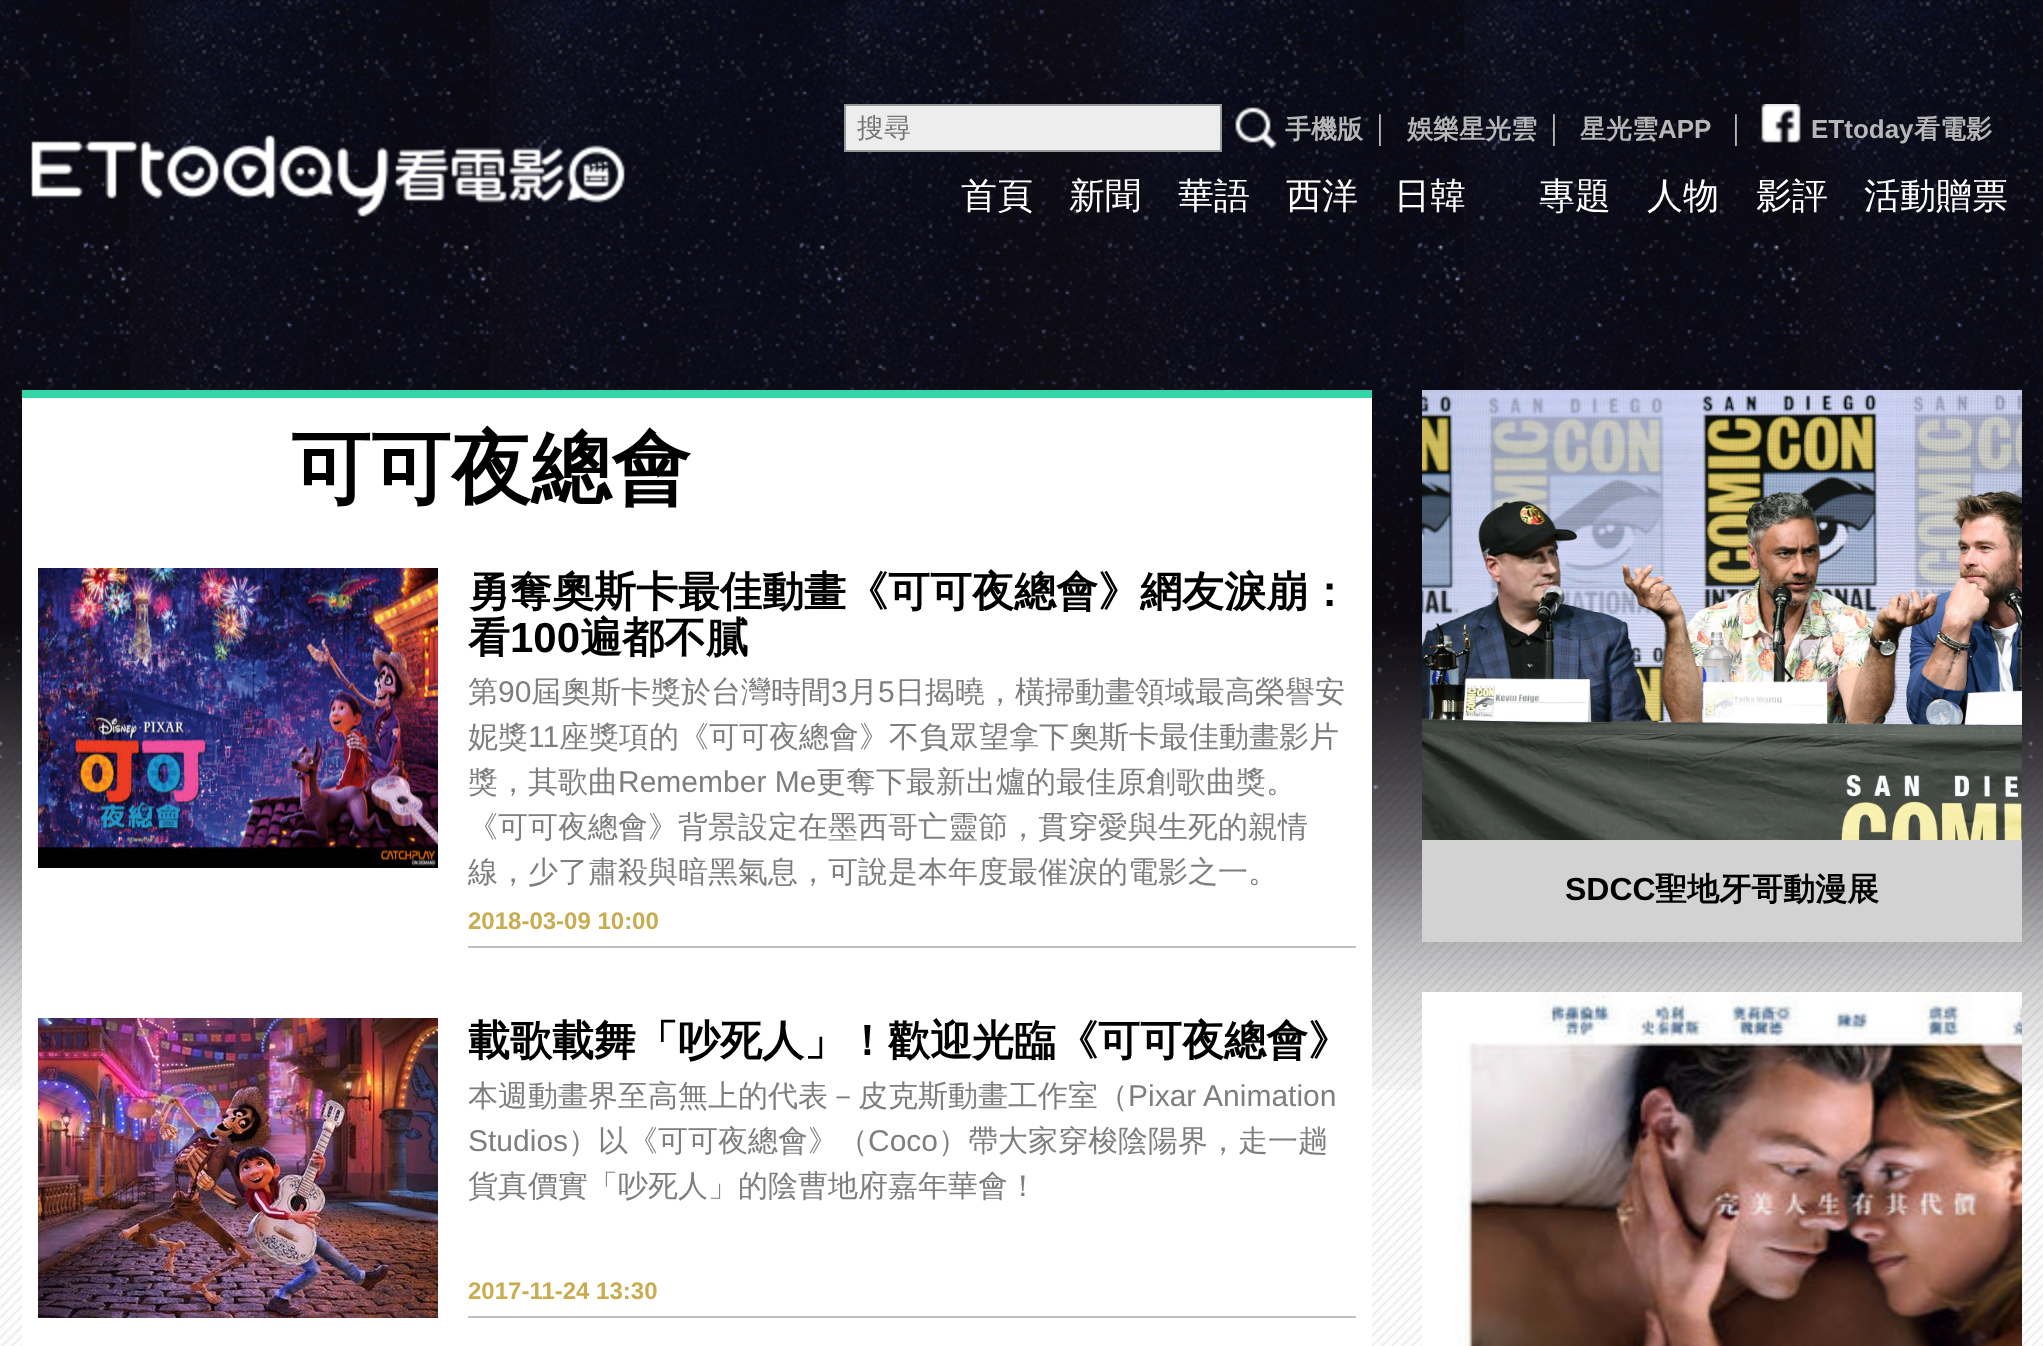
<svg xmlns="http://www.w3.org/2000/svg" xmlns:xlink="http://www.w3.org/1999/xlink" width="2043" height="1346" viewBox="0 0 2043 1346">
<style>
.cls-1{font:500 27px WenQuanYi Zen Hei;fill:#757575}
.cls-2{font:bold 26px WenQuanYi Zen Hei;fill:#b7b6b8}
.cls-3{font:bold 26px Liberation Sans;fill:#b7b6b8}
.cls-4{font:500 36px WenQuanYi Zen Hei;fill:#ffffff}
.cls-5{font:bold 80px WenQuanYi Zen Hei;fill:#000000}
.cls-6{font:bold 42px WenQuanYi Zen Hei;fill:#000000}
.cls-7{font:bold 42px Liberation Sans;fill:#000000}
.cls-8{font:500 30px WenQuanYi Zen Hei;fill:#7e7e7e}
.cls-9{font:30px Liberation Sans;fill:#7e7e7e}
.cls-10{font:bold 24px Liberation Sans;fill:#c9ab50}
.cls-11{font:bold 32px Liberation Sans;fill:#000000}
.cls-12{font:bold 32px WenQuanYi Zen Hei;fill:#000000}
</style>
<rect width="100%" height="100%" fill="#ffffff"/>
<image xlink:href="image0.png" x="0" y="166" width="2043" height="1180"/>
<image xlink:href="image1.png" x="0" y="0" width="2043" height="1090"/>
<rect fill="#ededee" stroke="#999999" stroke-width="2" x="845" y="105" width="376" height="46"/>
<image xlink:href="image2.png" x="1235" y="107" width="42" height="42"/>
<image xlink:href="image3.png" x="1761" y="104" width="40" height="39"/>
<image xlink:href="image4.png" x="31" y="135" width="594" height="82"/>
<rect fill="#ffffff" x="22" y="398" width="1350" height="948"/>
<rect fill="#34d4a6" x="22" y="390" width="1350" height="8"/>
<image xlink:href="image5.png" x="38" y="568" width="400" height="300"/>
<rect fill="#bfbfbf" x="468" y="946" width="888" height="2"/>
<image xlink:href="image6.png" x="38" y="1018" width="400" height="300"/>
<rect fill="#bfbfbf" x="468" y="1316" width="888" height="2"/>
<image xlink:href="image7.png" x="1422" y="390" width="600" height="450"/>
<rect fill="#d2d2d2" x="1422" y="840" width="600" height="102"/>
<rect fill="#ffffff" x="1422" y="992" width="35" height="354"/>
<image xlink:href="image8.png" x="1457" y="992" width="565" height="354"/>
<text class="cls-1" x="857" y="137">搜尋</text>
<text class="cls-2" x="1285" y="138">手機版</text>
<text class="cls-3" x="1373" y="138">│</text>
<text class="cls-2" x="1407" y="138">娛樂星光雲</text>
<text class="cls-3" x="1547" y="138">│</text>
<text class="cls-2" x="1580" y="138">星光雲</text>
<text class="cls-3" x="1658" y="138">APP</text>
<text class="cls-3" x="1729" y="138">│</text>
<text class="cls-3" x="1811" y="138">ETtoday</text>
<text class="cls-2" x="1914" y="138">看電影</text>
<text class="cls-4" x="961" y="208">首頁</text>
<text class="cls-4" x="1069" y="208">新聞</text>
<text class="cls-4" x="1178" y="208">華語</text>
<text class="cls-4" x="1286" y="208">西洋</text>
<text class="cls-4" x="1394" y="208">日韓</text>
<text class="cls-4" x="1539" y="208">專題</text>
<text class="cls-4" x="1647" y="208">人物</text>
<text class="cls-4" x="1756" y="208">影評</text>
<text class="cls-4" x="1864" y="208">活動贈票</text>
<text class="cls-5" x="291" y="496">可可夜總會</text>
<text class="cls-6"><tspan x="468" y="606">勇奪奧斯卡最佳動畫《可可夜總會》網友淚崩：</tspan><tspan x="468" y="652">看</tspan></text>
<text class="cls-7" x="510" y="652">100</text>
<text class="cls-6" x="580" y="652">遍都不膩</text>
<text class="cls-8" x="468" y="702">第</text>
<text class="cls-9" x="498" y="702">90</text>
<text class="cls-8" x="531" y="702">屆奧斯卡獎於台灣時間</text>
<text class="cls-9" x="831" y="702">3</text>
<text class="cls-8" x="848" y="702">月</text>
<text class="cls-9" x="878" y="702">5</text>
<text class="cls-8" x="895" y="702">日揭曉，橫掃動畫領域最高榮譽安</text>
<text class="cls-8" x="468" y="747">妮獎</text>
<text class="cls-9" x="528" y="747">11</text>
<text class="cls-8" x="559" y="747">座獎項的《可可夜總會》不負眾望拿下奧斯卡最佳動畫影片</text>
<text class="cls-8" x="468" y="792">獎，其歌曲</text>
<text class="cls-9" x="618" y="792">Remember Me</text>
<text class="cls-8" x="816" y="792">更奪下最新出爐的最佳原創歌曲獎。</text>
<text class="cls-8"><tspan x="468" y="837">《可可夜總會》背景設定在墨西哥亡靈節，貫穿愛與生死的親情</tspan><tspan x="468" y="882">線，少了肅殺與暗黑氣息，可說是本年度最催淚的電影之一。</tspan></text>
<text class="cls-10" x="468" y="929">2018-03-09 10:00</text>
<text class="cls-6" x="468" y="1055">載歌載舞「吵死人」！歡迎光臨《可可夜總會》</text>
<text class="cls-8" x="468" y="1106">本週動畫界至高無上的代表－皮克斯動畫工作室（</text>
<text class="cls-9" x="1128" y="1106">Pixar Animation</text>
<text class="cls-9" x="468" y="1151">Studios</text>
<text class="cls-8" x="568" y="1151">）以《可可夜總會》（</text>
<text class="cls-9" x="868" y="1151">Coco</text>
<text class="cls-8" x="938" y="1151">）帶大家穿梭陰陽界，走一趟</text>
<text class="cls-8" x="468" y="1196">貨真價實「吵死人」的陰曹地府嘉年華會！</text>
<text class="cls-10" x="468" y="1299">2017-11-24 13:30</text>
<text class="cls-11" x="1565" y="900">SDCC</text>
<text class="cls-12" x="1655" y="900">聖地牙哥動漫展</text>
</svg>
